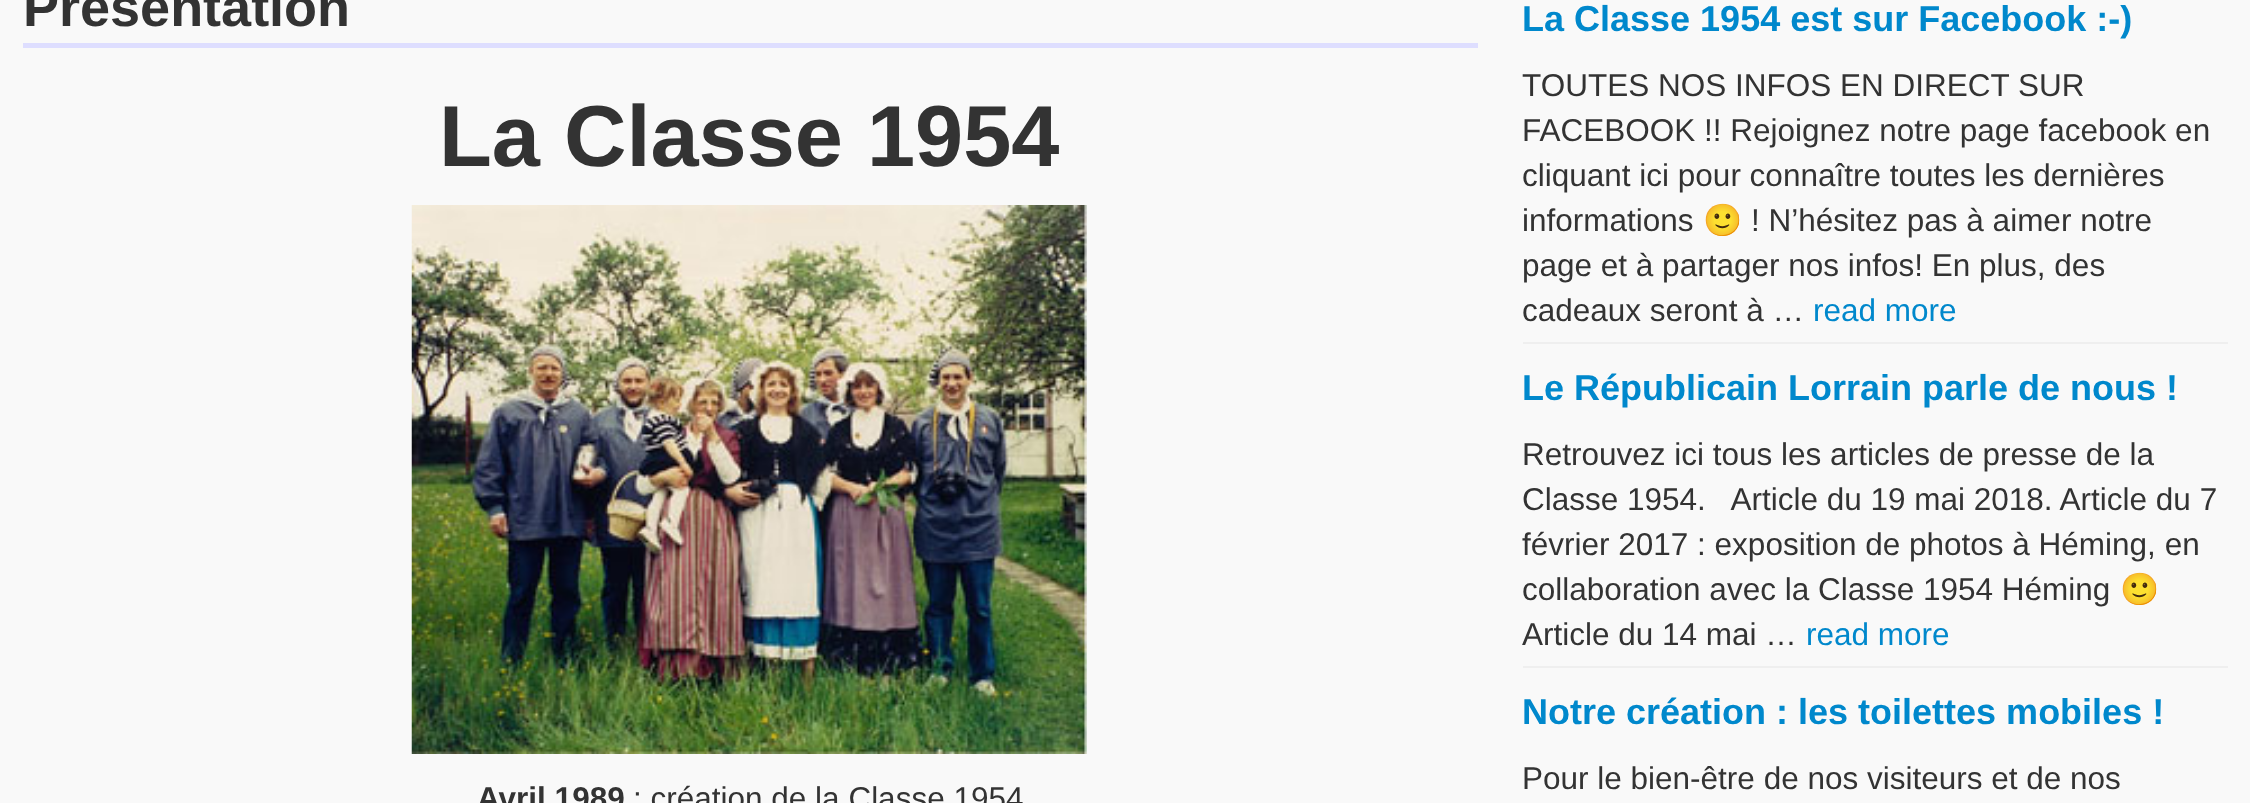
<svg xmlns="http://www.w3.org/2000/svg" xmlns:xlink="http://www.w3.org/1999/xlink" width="2250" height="803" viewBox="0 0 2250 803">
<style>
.cls-1{font:bold 54px Liberation Sans;fill:#333333}
.cls-2{font:bold 86.5px Liberation Sans;fill:#333333}
.cls-3{font:bold 31.5px Liberation Sans;fill:#333333}
.cls-4{font:31.5px Liberation Sans;fill:#333333}
.cls-5{font:bold 36px Liberation Sans;fill:#0088cc}
.cls-6{font:31.5px Noto Color Emoji;fill:#333333}
.cls-7{font:31.5px Liberation Sans;fill:#0088cc}
</style>
<rect width="100%" height="100%" fill="#f9f9f9"/>
<rect fill="#dedeff" x="23" y="43" width="1455" height="5"/>
<image xlink:href="image0.png" x="411" y="205" width="676" height="549"/>
<rect fill="#efefef" x="1523" y="342" width="705" height="2"/>
<rect fill="#efefef" x="1523" y="666" width="705" height="2"/>
<text class="cls-1" x="23" y="26">Présentation</text>
<text class="cls-2" x="439" y="166">La Classe 1954</text>
<text class="cls-3" x="477" y="809">Avril 1989</text>
<text class="cls-4" x="633" y="809">: création de la Classe 1954</text>
<text class="cls-5" x="1522" y="31">La Classe 1954 est sur Facebook :-)</text>
<text class="cls-4"><tspan x="1522" y="96">TOUTES NOS INFOS EN DIRECT SUR</tspan><tspan x="1522" y="141">FACEBOOK !! Rejoignez notre page facebook en</tspan><tspan x="1522" y="186">cliquant ici pour connaître toutes les dernières</tspan><tspan x="1522" y="231">informations</tspan></text>
<text class="cls-6" x="1703" y="231">🙂</text>
<text class="cls-4" x="1751" y="231">! N’hésitez pas à aimer notre</text>
<text class="cls-4"><tspan x="1522" y="276">page et à partager nos infos! En plus, des</tspan><tspan x="1522" y="321">cadeaux seront à …</tspan></text>
<text class="cls-7" x="1813" y="321">read more</text>
<text class="cls-5" x="1522" y="400">Le Républicain Lorrain parle de nous !</text>
<text class="cls-4" xml:space="preserve"><tspan x="1522" y="465">Retrouvez ici tous les articles de presse de la</tspan><tspan x="1522" y="510">Classe 1954.   Article du 19 mai 2018. Article du 7</tspan><tspan x="1522" y="555">février 2017 : exposition de photos à Héming, en</tspan><tspan x="1522" y="600">collaboration avec la Classe 1954 Héming</tspan></text>
<text class="cls-6" x="2120" y="600">🙂</text>
<text class="cls-4" x="1522" y="645">Article du 14 mai …</text>
<text class="cls-7" x="1806" y="645">read more</text>
<text class="cls-5" x="1522" y="724">Notre création : les toilettes mobiles !</text>
<text class="cls-4" x="1522" y="789">Pour le bien-être de nos visiteurs et de nos</text>
</svg>
